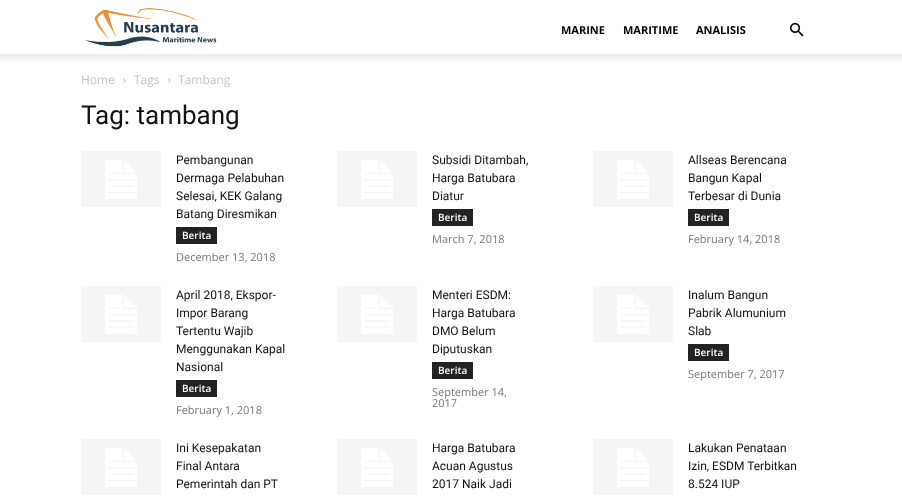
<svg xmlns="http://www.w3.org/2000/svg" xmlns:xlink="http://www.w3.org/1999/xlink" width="902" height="497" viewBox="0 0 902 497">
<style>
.cls-1{font:bold 11px Open Sans;fill:#000000}
.cls-2{font:12px Open Sans;fill:#c3c3c3}
.cls-3{font:26px Roboto;fill:#111111}
.cls-4{font:12px Roboto;fill:#111111}
.cls-5{font:600 10px Open Sans;fill:#ffffff}
.cls-6{font:11px Open Sans;fill:#767676}
</style>
<rect width="100%" height="100%" fill="#ffffff"/>
<image xlink:href="image0.png" x="85" y="8" width="132" height="39"/>
<image xlink:href="image1.png" x="790" y="22" width="14" height="15"/>
<image xlink:href="image2.png" x="0" y="54" width="902" height="9"/>
<image xlink:href="image3.png" x="123" y="78" width="3" height="5"/>
<image xlink:href="image3.png" x="168" y="78" width="3" height="5"/>
<image xlink:href="image4.png" x="81" y="151" width="80" height="56"/>
<rect fill="#222222" x="176" y="227" width="41" height="17"/>
<image xlink:href="image4.png" x="337" y="151" width="80" height="56"/>
<rect fill="#222222" x="432" y="209" width="41" height="17"/>
<image xlink:href="image4.png" x="593" y="151" width="80" height="56"/>
<rect fill="#222222" x="688" y="209" width="41" height="17"/>
<image xlink:href="image4.png" x="81" y="286" width="80" height="56"/>
<rect fill="#222222" x="176" y="380" width="41" height="17"/>
<image xlink:href="image4.png" x="337" y="286" width="80" height="56"/>
<rect fill="#222222" x="432" y="362" width="41" height="17"/>
<image xlink:href="image4.png" x="593" y="286" width="80" height="56"/>
<rect fill="#222222" x="688" y="344" width="41" height="17"/>
<image xlink:href="image4.png" x="81" y="439" width="80" height="56"/>
<image xlink:href="image4.png" x="337" y="439" width="80" height="56"/>
<image xlink:href="image4.png" x="593" y="439" width="80" height="56"/>
<text class="cls-1" x="561" y="34">MARINE</text>
<text class="cls-1" x="623" y="34">MARITIME</text>
<text class="cls-1" x="696" y="34">ANALISIS</text>
<text class="cls-2" x="81" y="84">Home</text>
<text class="cls-2" x="134" y="84">Tags</text>
<text class="cls-2" x="178" y="84">Tambang</text>
<text class="cls-3" x="81" y="124">Tag: tambang</text>
<text class="cls-4"><tspan x="176" y="164">Pembangunan</tspan><tspan x="176" y="182">Dermaga Pelabuhan</tspan><tspan x="176" y="200">Selesai, KEK Galang</tspan><tspan x="176" y="218">Batang Diresmikan</tspan></text>
<text class="cls-5" x="182" y="239">Berita</text>
<text class="cls-6" x="176" y="261">December 13, 2018</text>
<text class="cls-4"><tspan x="432" y="164">Subsidi Ditambah,</tspan><tspan x="432" y="182">Harga Batubara</tspan><tspan x="432" y="200">Diatur</tspan></text>
<text class="cls-5" x="438" y="221">Berita</text>
<text class="cls-6" x="432" y="243">March 7, 2018</text>
<text class="cls-4"><tspan x="688" y="164">Allseas Berencana</tspan><tspan x="688" y="182">Bangun Kapal</tspan><tspan x="688" y="200">Terbesar di Dunia</tspan></text>
<text class="cls-5" x="694" y="221">Berita</text>
<text class="cls-6" x="688" y="243">February 14, 2018</text>
<text class="cls-4"><tspan x="176" y="299">April 2018, Ekspor-</tspan><tspan x="176" y="317">Impor Barang</tspan><tspan x="176" y="335">Tertentu Wajib</tspan><tspan x="176" y="353">Menggunakan Kapal</tspan><tspan x="176" y="371">Nasional</tspan></text>
<text class="cls-5" x="182" y="392">Berita</text>
<text class="cls-6" x="176" y="414">February 1, 2018</text>
<text class="cls-4"><tspan x="432" y="299">Menteri ESDM:</tspan><tspan x="432" y="317">Harga Batubara</tspan><tspan x="432" y="335">DMO Belum</tspan><tspan x="432" y="353">Diputuskan</tspan></text>
<text class="cls-5" x="438" y="374">Berita</text>
<text class="cls-6"><tspan x="432" y="396">September 14,</tspan><tspan x="432" y="407">2017</tspan></text>
<text class="cls-4"><tspan x="688" y="299">Inalum Bangun</tspan><tspan x="688" y="317">Pabrik Alumunium</tspan><tspan x="688" y="335">Slab</tspan></text>
<text class="cls-5" x="694" y="356">Berita</text>
<text class="cls-6" x="688" y="378">September 7, 2017</text>
<text class="cls-4"><tspan x="176" y="452">Ini Kesepakatan</tspan><tspan x="176" y="470">Final Antara</tspan><tspan x="176" y="488">Pemerintah dan PT</tspan></text>
<text class="cls-4"><tspan x="432" y="452">Harga Batubara</tspan><tspan x="432" y="470">Acuan Agustus</tspan><tspan x="432" y="488">2017 Naik Jadi</tspan></text>
<text class="cls-4"><tspan x="688" y="452">Lakukan Penataan</tspan><tspan x="688" y="470">Izin, ESDM Terbitkan</tspan><tspan x="688" y="488">8.524 IUP</tspan></text>
</svg>
